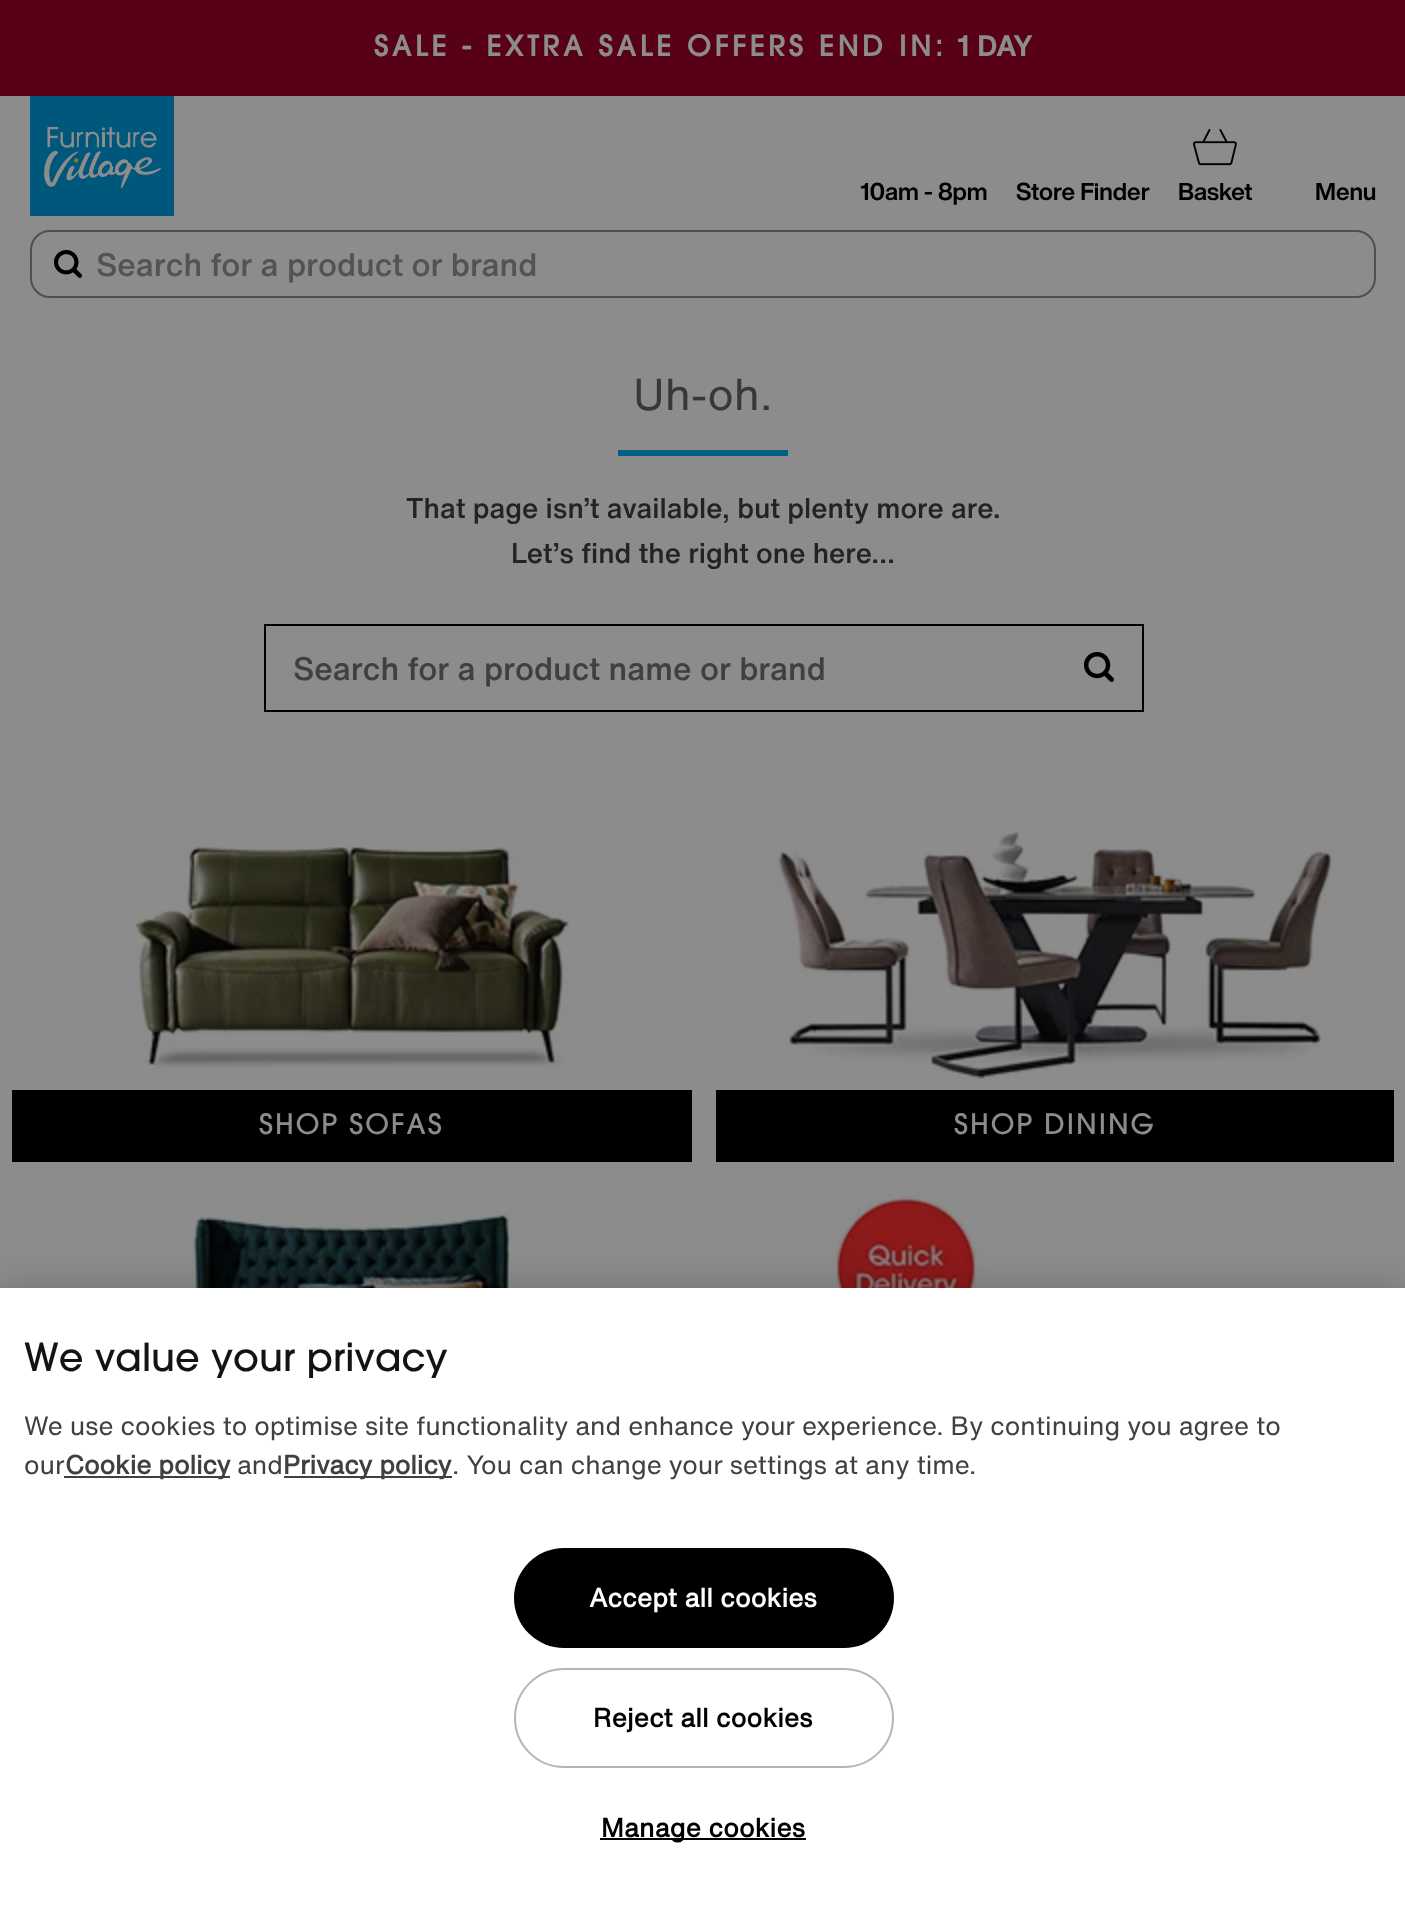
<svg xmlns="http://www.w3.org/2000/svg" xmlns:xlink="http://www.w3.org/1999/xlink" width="1405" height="1928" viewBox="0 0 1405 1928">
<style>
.cls-1{font:bold 28px 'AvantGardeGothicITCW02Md';letter-spacing:4px;fill:#8c8c8c}
.cls-2{font:bold 28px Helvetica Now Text;fill:#8c8c8c}
.cls-3{font:bold 24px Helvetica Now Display;fill:#000000}
.cls-4{font:500 32px Helvetica Now Text;fill:#535353}
.cls-5{font:44px Helvetica Now Text;fill:#383838}
.cls-6{font:500 28px Helvetica Now Text;fill:#232324}
.cls-7{font:500 32px Helvetica Now Text;fill:#404040}
.cls-8{font:28px 'AvantGardeGothicITCW02Md';letter-spacing:2px;fill:#8c8c8c}
.cls-9{font:38.4px 'AvantGardeGothicITCW02Md';fill:#131313}
.cls-10{font:26px Helvetica Now Text;fill:#404040}
.cls-11{font:bold 26px 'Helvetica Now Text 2';fill:#404040}
.cls-12{font:bold 26px 'Helvetica Now Text 2';letter-spacing:0.25px;fill:#ffffff}
.cls-13{font:bold 26px 'Helvetica Now Text 2';letter-spacing:0.25px;fill:#000000}
</style>
<rect width="100%" height="100%" fill="#8c8c8c"/>
<rect fill="#580016" x="0" y="0" width="1405" height="96"/>
<rect fill="none" stroke="#4f4f4f" stroke-width="2" x="31" y="231" width="1344" height="66" rx="19"/>
<image xlink:href="image0.png" x="54" y="250" width="28" height="28"/>
<rect fill="#00577c" x="30" y="96" width="144" height="120"/>
<image xlink:href="image1.png" x="44" y="126" width="117" height="62"/>
<image xlink:href="image2.png" x="1193" y="129" width="44" height="37"/>
<rect fill="#006083" x="618" y="450" width="170" height="6"/>
<rect fill="none" stroke="#000000" stroke-width="2" x="265" y="625" width="878" height="86"/>
<image xlink:href="image3.png" x="1084" y="652" width="30" height="30"/>
<image xlink:href="image4.png" x="135" y="845" width="434" height="224"/>
<rect fill="#000000" x="12" y="1090" width="680" height="72"/>
<image xlink:href="image5.png" x="774" y="831" width="560" height="248"/>
<rect fill="#000000" x="716" y="1090" width="678" height="72"/>
<image xlink:href="image6.png" x="168" y="1210" width="384" height="78"/>
<image xlink:href="image7.png" x="798" y="1193" width="528" height="95"/>
<rect fill="#000000" fill-opacity="0.2" filter="blur(18px)" x="0" y="1288" width="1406" height="640"/>
<rect fill="#ffffff" x="0" y="1288" width="1405" height="640"/>
<rect fill="#404041" x="64" y="1476" width="166" height="2"/>
<rect fill="#404041" x="284" y="1476" width="168" height="2"/>
<rect fill="#000000" x="514" y="1548" width="380" height="100" rx="50"/>
<rect fill="none" stroke="#afb6c0" stroke-width="2" x="515" y="1669" width="378" height="98" rx="49"/>
<rect fill="#000000" x="600" y="1838" width="206" height="2"/>
<text class="cls-1" x="374" y="56">SALE - EXTRA SALE OFFERS END IN:</text>
<text class="cls-2" x="957" y="56">1 DAY</text>
<text class="cls-3" x="1315" y="200">Menu</text>
<text class="cls-4" x="96" y="276">Search for a product or brand</text>
<text class="cls-3" x="860" y="200">10am - 8pm</text>
<text class="cls-3" x="1016" y="200">Store Finder</text>
<text class="cls-3" x="1178" y="200">Basket</text>
<text class="cls-5" x="633" y="410">Uh-oh.</text>
<text class="cls-6" x="406" y="518">That page isn’t available, but plenty more are.</text>
<text class="cls-6" x="511" y="563">Let’s find the right one here…</text>
<text class="cls-7" x="293" y="680">Search for a product name or brand</text>
<text class="cls-8" x="259" y="1134">SHOP SOFAS</text>
<text class="cls-8" x="954" y="1134">SHOP DINING</text>
<text class="cls-9" x="24" y="1371">We value your privacy</text>
<text class="cls-10"><tspan x="24" y="1435">We use cookies to optimise site functionality and enhance your experience. By continuing you agree to</tspan><tspan x="24" y="1474">our</tspan></text>
<text class="cls-11" x="65" y="1474">Cookie policy</text>
<text class="cls-10" x="237" y="1474">and</text>
<text class="cls-11" x="283" y="1474">Privacy policy</text>
<text class="cls-10" x="452" y="1474">. You can change your settings at any time.</text>
<text class="cls-12" x="589" y="1607">Accept all cookies</text>
<text class="cls-13" x="593" y="1727">Reject all cookies</text>
<text class="cls-13" x="601" y="1837">Manage cookies</text>
</svg>
